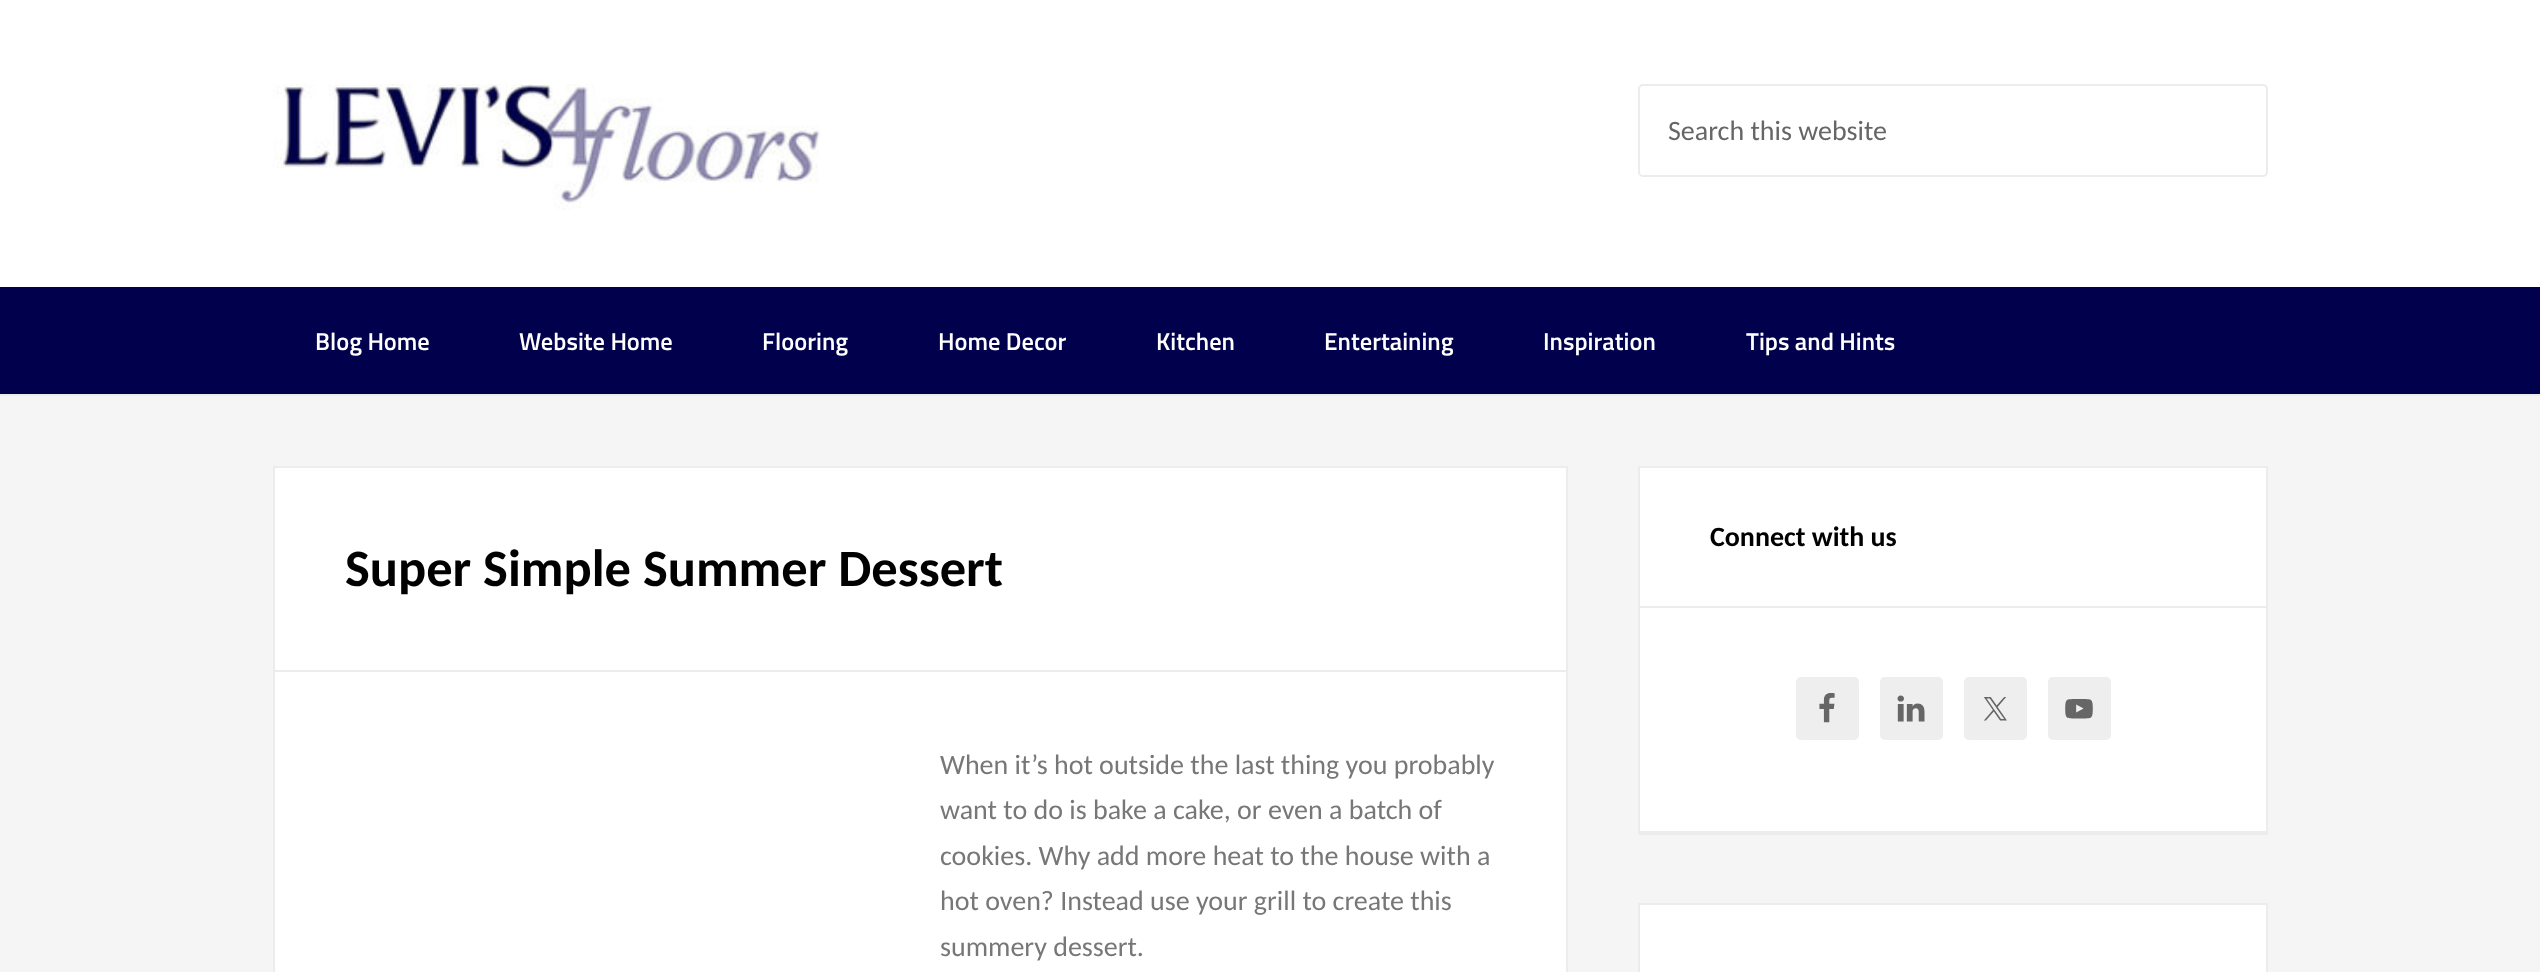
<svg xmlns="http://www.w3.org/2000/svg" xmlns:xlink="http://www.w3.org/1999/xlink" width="2540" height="972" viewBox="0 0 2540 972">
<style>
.cls-1{font:28px Carlito;fill:#666666}
.cls-2{font:600 24.5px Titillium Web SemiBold;fill:#ffffff}
.cls-3{font:bold 28px Carlito;fill:#000000}
.cls-4{font:bold 52.5px Carlito;fill:#000000}
.cls-5{font:28px Carlito;fill:#777777}
</style>
<rect width="100%" height="100%" fill="#ffffff"/>
<image xlink:href="image0.png" x="273" y="84" width="547" height="126"/>
<rect fill="none" stroke="#ececec" stroke-width="2" x="1639" y="85" width="628" height="91" rx="4"/>
<rect fill="#01004c" x="0" y="287" width="2540" height="107"/>
<rect fill="#f5f5f5" x="0" y="396" width="2540" height="576"/>
<rect fill="#ececec" x="0" y="394" width="2540" height="2"/>
<rect fill="#ececec" x="1638" y="833" width="630" height="2"/>
<rect fill="#ffffff" stroke="#ececec" stroke-width="2" x="1639" y="467" width="628" height="365"/>
<rect fill="#ececec" x="1640" y="606" width="626" height="2"/>
<rect fill="#eeeeee" x="1796" y="677" width="63" height="63" rx="5"/>
<image xlink:href="image1.png" x="1819" y="693" width="16" height="30"/>
<rect fill="#eeeeee" x="1880" y="677" width="63" height="63" rx="5"/>
<image xlink:href="image2.png" x="1897" y="695" width="28" height="27"/>
<rect fill="#eeeeee" x="1964" y="677" width="63" height="63" rx="5"/>
<image xlink:href="image3.png" x="1984" y="697" width="23" height="24"/>
<rect fill="#eeeeee" x="2048" y="677" width="63" height="63" rx="5"/>
<image xlink:href="image4.png" x="2065" y="699" width="28" height="20"/>
<rect fill="#ffffff" stroke="#ececec" stroke-width="2" x="1639" y="904" width="628" height="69"/>
<rect fill="#ffffff" stroke="#ececec" stroke-width="2" x="274" y="467" width="1293" height="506"/>
<rect fill="#ececec" x="275" y="670" width="1291" height="2"/>
<text class="cls-1" x="1668" y="140">Search this website</text>
<text class="cls-2" x="315" y="350">Blog Home</text>
<text class="cls-2" x="519" y="350">Website Home</text>
<text class="cls-2" x="762" y="350">Flooring</text>
<text class="cls-2" x="938" y="350">Home Decor</text>
<text class="cls-2" x="1156" y="350">Kitchen</text>
<text class="cls-2" x="1324" y="350">Entertaining</text>
<text class="cls-2" x="1543" y="350">Inspiration</text>
<text class="cls-2" x="1746" y="350">Tips and Hints</text>
<text class="cls-3" x="1710" y="546">Connect with us</text>
<text class="cls-4" x="345" y="586">Super Simple Summer Dessert</text>
<text class="cls-5"><tspan x="940" y="774">When it’s hot outside the last thing you probably</tspan><tspan x="940" y="819">want to do is bake a cake, or even a batch of</tspan><tspan x="940" y="865">cookies. Why add more heat to the house with a</tspan><tspan x="940" y="910">hot oven? Instead use your grill to create this</tspan><tspan x="940" y="956">summery dessert.</tspan></text>
</svg>
